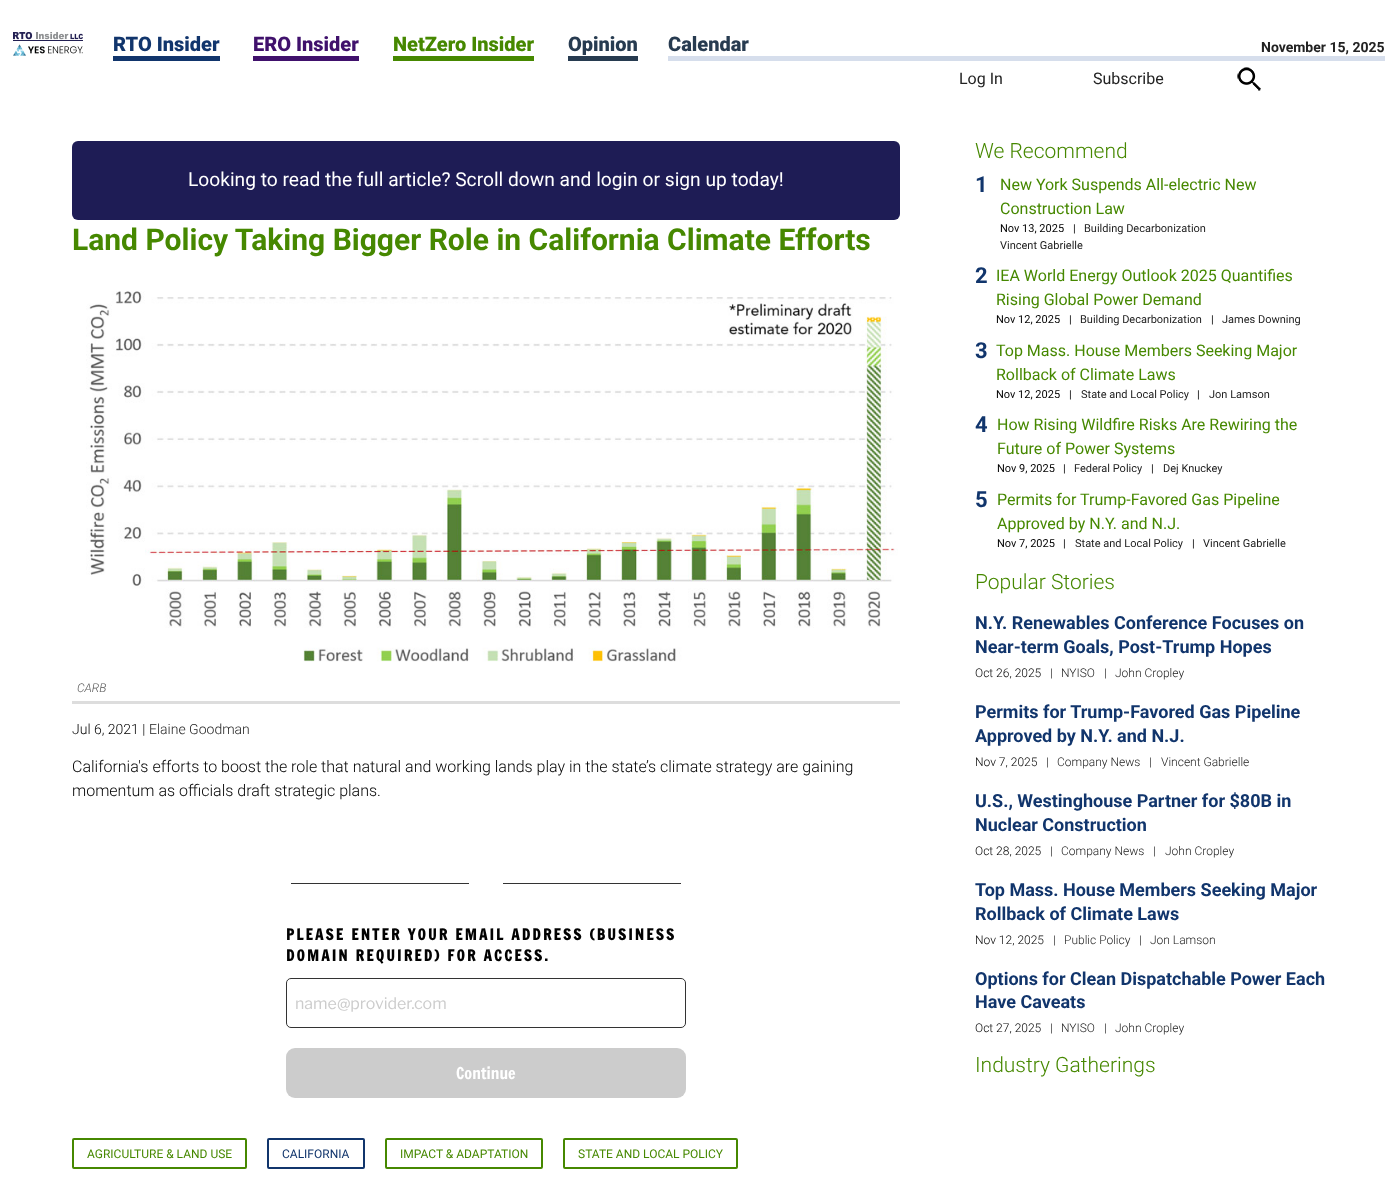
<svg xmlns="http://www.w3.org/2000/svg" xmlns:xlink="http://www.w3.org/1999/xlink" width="1398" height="1177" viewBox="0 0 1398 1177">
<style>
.cls-1{font:900 20px Roboto;fill:#11356c}
.cls-2{font:900 20px Roboto;fill:#40116c}
.cls-3{font:900 20px Roboto;fill:#468800}
.cls-4{font:900 20px Roboto;fill:#273b50}
.cls-5{font:bold 14px Roboto;fill:#222222}
.cls-6{font:16px Roboto;fill:#222222}
.cls-7{font:19.2px Roboto;fill:#ffffff}
.cls-8{font:bold 30px Roboto;fill:#468800}
.cls-9{font:italic 300 12px Roboto;fill:#555555}
.cls-10{font:300 14px Roboto;fill:#020202}
.cls-11{font:300 14px Roboto;fill:#222222}
.cls-12{font:300 16px Roboto;fill:#020202}
.cls-13{font:bold 15px Francois One;letter-spacing:2.25px;fill:#020202}
.cls-14{font:16px Libre Franklin;fill:#cccccc}
.cls-15{font:16px Francois One;fill:#ffffff}
.cls-16{font:12px Roboto;fill:#468800}
.cls-17{font:12px Roboto;fill:#11356c}
.cls-18{font:300 21px Roboto;fill:#468800}
.cls-19{font:bold 22px Roboto;fill:#11356c}
.cls-20{font:16px Roboto;fill:#468800}
.cls-21{font:11px Roboto;fill:#020202}
.cls-22{font:11px Roboto;fill:#222222}
.cls-23{font:bold 18px Roboto;fill:#11356c}
.cls-24{font:300 12px Roboto;fill:#020202}
.cls-25{font:300 12px Roboto;fill:#222222}
</style>
<rect width="100%" height="100%" fill="#ffffff"/>
<image xlink:href="image0.png" x="13" y="32" width="70" height="24"/>
<rect fill="#11356c" x="113" y="56" width="107" height="5"/>
<rect fill="#40116c" x="253" y="56" width="106" height="5"/>
<rect fill="#468800" x="393" y="56" width="141" height="5"/>
<rect fill="#273b50" x="568" y="56" width="70" height="5"/>
<rect fill="#d6deec" x="668" y="56" width="717" height="5"/>
<image xlink:href="image1.png" x="1237" y="67" width="24" height="24"/>
<rect fill="#1e1c55" x="72" y="141" width="828" height="79" rx="6"/>
<image xlink:href="image2.png" x="86" y="291" width="812" height="371"/>
<rect fill="#dddddd" x="72" y="701" width="828" height="3"/>
<rect fill="#333333" x="291" y="883" width="178" height="1"/>
<rect fill="#333333" x="503" y="883" width="178" height="1"/>
<rect fill="none" stroke="#333333" x="286.5" y="978.5" width="399" height="49" rx="4.5"/>
<rect fill="#cccccc" x="286" y="1048" width="400" height="50" rx="9"/>
<rect fill="none" stroke="#468800" stroke-width="2" x="73" y="1139" width="173" height="29" rx="1"/>
<rect fill="none" stroke="#11356c" stroke-width="2" x="268" y="1139" width="96" height="29" rx="1"/>
<rect fill="none" stroke="#468800" stroke-width="2" x="386" y="1139" width="156" height="29" rx="1"/>
<rect fill="none" stroke="#468800" stroke-width="2" x="564" y="1139" width="173" height="29" rx="1"/>
<text class="cls-1" x="113" y="51">RTO Insider</text>
<text class="cls-2" x="253" y="51">ERO Insider</text>
<text class="cls-3" x="393" y="51">NetZero Insider</text>
<text class="cls-4" x="568" y="51">Opinion</text>
<text class="cls-4" x="668" y="51">Calendar</text>
<text class="cls-5" x="1261" y="52">November 15, 2025</text>
<text class="cls-6" x="959" y="84">Log In</text>
<text class="cls-6" x="1093" y="84">Subscribe</text>
<text class="cls-7" x="188" y="186">Looking to read the full article? Scroll down and login or sign up today!</text>
<text class="cls-8" x="72" y="250">Land Policy Taking Bigger Role in California Climate Efforts</text>
<text class="cls-9" x="77" y="692">CARB</text>
<text class="cls-10" x="72" y="734">Jul 6, 2021 |</text>
<text class="cls-11" x="149" y="734">Elaine Goodman</text>
<text class="cls-12"><tspan x="72" y="772">California's efforts to boost the role that natural and working lands play in the state’s climate strategy are gaining</tspan><tspan x="72" y="796">momentum as officials draft strategic plans.</tspan></text>
<text class="cls-13"><tspan x="286" y="940">PLEASE ENTER YOUR EMAIL ADDRESS (BUSINESS</tspan><tspan x="286" y="961">DOMAIN REQUIRED) FOR ACCESS.</tspan></text>
<text class="cls-14" x="295" y="1009">name@provider.com</text>
<text class="cls-15" x="456" y="1079">Continue</text>
<text class="cls-16" x="87" y="1158">AGRICULTURE &amp; LAND USE</text>
<text class="cls-17" x="282" y="1158">CALIFORNIA</text>
<text class="cls-16" x="400" y="1158">IMPACT &amp; ADAPTATION</text>
<text class="cls-16" x="578" y="1158">STATE AND LOCAL POLICY</text>
<text class="cls-18" x="975" y="158">We Recommend</text>
<text class="cls-19" x="975" y="192">1</text>
<text class="cls-20"><tspan x="1000" y="190">New York Suspends All-electric New</tspan><tspan x="1000" y="214">Construction Law</tspan></text>
<text class="cls-21" x="1000" y="232">Nov 13, 2025</text>
<text class="cls-21" x="1073" y="232">|</text>
<text class="cls-22" x="1084" y="232">Building Decarbonization</text>
<text class="cls-22" x="1000" y="249">Vincent Gabrielle</text>
<text class="cls-19" x="975" y="283">2</text>
<text class="cls-20"><tspan x="996" y="281">IEA World Energy Outlook 2025 Quantifies</tspan><tspan x="996" y="305">Rising Global Power Demand</tspan></text>
<text class="cls-21" x="996" y="323">Nov 12, 2025</text>
<text class="cls-21" x="1069" y="323">|</text>
<text class="cls-22" x="1080" y="323">Building Decarbonization</text>
<text class="cls-21" x="1211" y="323">|</text>
<text class="cls-22" x="1222" y="323">James Downing</text>
<text class="cls-19" x="975" y="358">3</text>
<text class="cls-20"><tspan x="996" y="356">Top Mass. House Members Seeking Major</tspan><tspan x="996" y="380">Rollback of Climate Laws</tspan></text>
<text class="cls-21" x="996" y="398">Nov 12, 2025</text>
<text class="cls-21" x="1069" y="398">|</text>
<text class="cls-22" x="1081" y="398">State and Local Policy</text>
<text class="cls-21" x="1197" y="398">|</text>
<text class="cls-22" x="1209" y="398">Jon Lamson</text>
<text class="cls-19" x="975" y="432">4</text>
<text class="cls-20"><tspan x="997" y="430">How Rising Wildfire Risks Are Rewiring the</tspan><tspan x="997" y="454">Future of Power Systems</tspan></text>
<text class="cls-21" x="997" y="472">Nov 9, 2025</text>
<text class="cls-21" x="1063" y="472">|</text>
<text class="cls-22" x="1074" y="472">Federal Policy</text>
<text class="cls-21" x="1151" y="472">|</text>
<text class="cls-22" x="1163" y="472">Dej Knuckey</text>
<text class="cls-19" x="975" y="507">5</text>
<text class="cls-20"><tspan x="997" y="505">Permits for Trump-Favored Gas Pipeline</tspan><tspan x="997" y="529">Approved by N.Y. and N.J.</tspan></text>
<text class="cls-21" x="997" y="547">Nov 7, 2025</text>
<text class="cls-21" x="1063" y="547">|</text>
<text class="cls-22" x="1075" y="547">State and Local Policy</text>
<text class="cls-21" x="1192" y="547">|</text>
<text class="cls-22" x="1203" y="547">Vincent Gabrielle</text>
<text class="cls-18" x="975" y="589">Popular Stories</text>
<text class="cls-23"><tspan x="975" y="629">N.Y. Renewables Conference Focuses on</tspan><tspan x="975" y="653">Near-term Goals, Post-Trump Hopes</tspan></text>
<text class="cls-24" x="975" y="677">Oct 26, 2025</text>
<text class="cls-24" x="1050" y="677">|</text>
<text class="cls-25" x="1061" y="677">NYISO</text>
<text class="cls-24" x="1104" y="677">|</text>
<text class="cls-25" x="1115" y="677">John Cropley</text>
<text class="cls-23"><tspan x="975" y="718">Permits for Trump-Favored Gas Pipeline</tspan><tspan x="975" y="742">Approved by N.Y. and N.J.</tspan></text>
<text class="cls-24" x="975" y="766">Nov 7, 2025</text>
<text class="cls-24" x="1046" y="766">|</text>
<text class="cls-25" x="1057" y="766">Company News</text>
<text class="cls-24" x="1149" y="766">|</text>
<text class="cls-25" x="1161" y="766">Vincent Gabrielle</text>
<text class="cls-23"><tspan x="975" y="807">U.S., Westinghouse Partner for $80B in</tspan><tspan x="975" y="831">Nuclear Construction</tspan></text>
<text class="cls-24" x="975" y="855">Oct 28, 2025</text>
<text class="cls-24" x="1050" y="855">|</text>
<text class="cls-25" x="1061" y="855">Company News</text>
<text class="cls-24" x="1153" y="855">|</text>
<text class="cls-25" x="1165" y="855">John Cropley</text>
<text class="cls-23"><tspan x="975" y="896">Top Mass. House Members Seeking Major</tspan><tspan x="975" y="920">Rollback of Climate Laws</tspan></text>
<text class="cls-24" x="975" y="944">Nov 12, 2025</text>
<text class="cls-24" x="1053" y="944">|</text>
<text class="cls-25" x="1064" y="944">Public Policy</text>
<text class="cls-24" x="1139" y="944">|</text>
<text class="cls-25" x="1150" y="944">Jon Lamson</text>
<text class="cls-23"><tspan x="975" y="985">Options for Clean Dispatchable Power Each</tspan><tspan x="975" y="1008">Have Caveats</tspan></text>
<text class="cls-24" x="975" y="1032">Oct 27, 2025</text>
<text class="cls-24" x="1050" y="1032">|</text>
<text class="cls-25" x="1061" y="1032">NYISO</text>
<text class="cls-24" x="1104" y="1032">|</text>
<text class="cls-25" x="1115" y="1032">John Cropley</text>
<text class="cls-18" x="975" y="1072">Industry Gatherings</text>
</svg>
